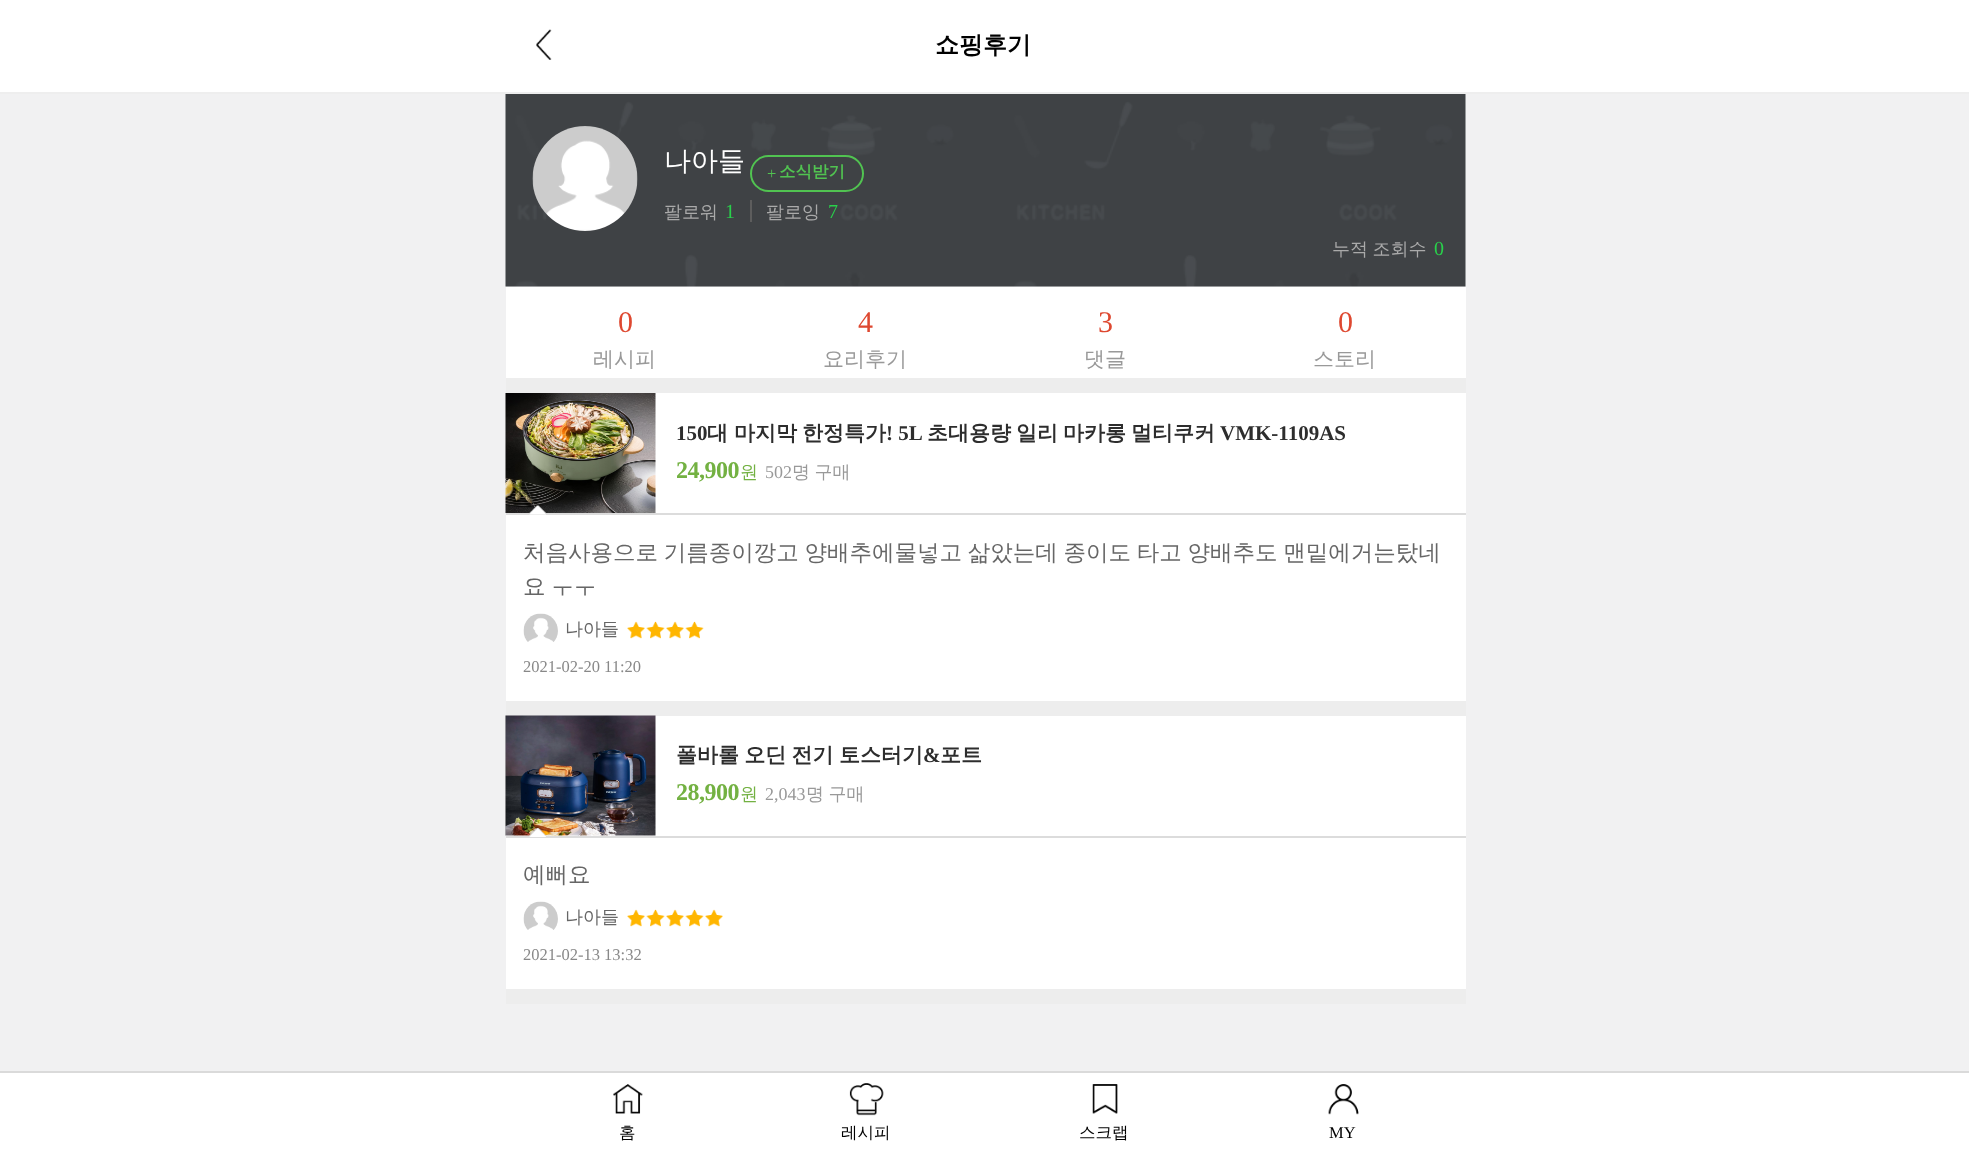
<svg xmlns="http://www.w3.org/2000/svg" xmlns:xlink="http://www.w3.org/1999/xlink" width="1969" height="1155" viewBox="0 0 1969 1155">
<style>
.cls-1{font:bold 24px WenQuanYi Zen Hei;fill:#000000}
.cls-2{font:500 27px WenQuanYi Zen Hei;fill:#ffffff}
.cls-3{font:16.5px Liberation Serif;fill:#51c351}
.cls-4{font:bold 16.5px WenQuanYi Zen Hei;fill:#51c351}
.cls-5{font:500 18px WenQuanYi Zen Hei;fill:#aaaaaa}
.cls-6{font:20px Liberation Serif;fill:#29d04b}
.cls-7{font:30px Liberation Serif;letter-spacing:-2px;fill:#de4830}
.cls-8{font:500 21px WenQuanYi Zen Hei;fill:#999999}
.cls-9{font:bold 21px Liberation Serif;fill:#2d2d2d}
.cls-10{font:bold 21px WenQuanYi Zen Hei;fill:#2d2d2d}
.cls-11{font:bold 24px Liberation Serif;letter-spacing:-0.5px;fill:#73b142}
.cls-12{font:500 18px WenQuanYi Zen Hei;letter-spacing:-0.5px;fill:#73b142}
.cls-13{font:18px Liberation Serif;fill:#999999}
.cls-14{font:500 18px WenQuanYi Zen Hei;fill:#999999}
.cls-15{font:500 22.5px WenQuanYi Zen Hei;fill:#666666}
.cls-16{font:500 18px WenQuanYi Zen Hei;fill:#666666}
.cls-17{font:16.5px Liberation Serif;fill:#888888}
.cls-18{font:500 16.5px WenQuanYi Zen Hei;fill:#000000}
.cls-19{font:16.5px Liberation Serif;fill:#000000}
</style>
<rect width="100%" height="100%" fill="#f1f1f2"/>
<rect fill="#ffffff" x="0" y="0" width="1969" height="92"/>
<rect fill="#eeeeee" x="0" y="92" width="1969" height="2"/>
<image xlink:href="image0.png" x="536" y="29" width="16" height="31"/>
<image xlink:href="image1.png" x="505" y="94" width="961" height="193"/>
<image xlink:href="image2.png" x="532" y="126" width="106" height="105"/>
<rect fill="none" stroke="#51c351" stroke-width="2" x="751" y="156" width="112" height="35" rx="17.5"/>
<rect fill="#5d5d5d" x="750" y="200" width="2" height="22"/>
<rect fill="#ffffff" x="506" y="287" width="960" height="702"/>
<rect fill="#ededed" x="506" y="378" width="960" height="15"/>
<rect fill="#ededed" x="506" y="701" width="960" height="15"/>
<image xlink:href="image3.png" x="505" y="393" width="151" height="120"/>
<rect fill="#dcdcdc" x="506" y="513" width="960" height="2"/>
<image xlink:href="image4.png" x="529" y="505" width="17" height="10"/>
<image xlink:href="image5.png" x="523" y="613" width="35" height="29"/>
<image xlink:href="image6.png" x="627" y="621" width="18" height="18"/>
<image xlink:href="image7.png" x="646" y="621" width="19" height="18"/>
<image xlink:href="image6.png" x="666" y="621" width="18" height="18"/>
<image xlink:href="image7.png" x="685" y="621" width="19" height="18"/>
<rect fill="#ededed" x="506" y="989" width="960" height="15"/>
<image xlink:href="image8.png" x="505" y="715" width="151" height="121"/>
<rect fill="#dcdcdc" x="506" y="836" width="960" height="2"/>
<image xlink:href="image9.png" x="529" y="828" width="18" height="9"/>
<image xlink:href="image5.png" x="523" y="901" width="35" height="29"/>
<image xlink:href="image6.png" x="627" y="909" width="18" height="18"/>
<image xlink:href="image7.png" x="646" y="909" width="19" height="18"/>
<image xlink:href="image6.png" x="666" y="909" width="18" height="18"/>
<image xlink:href="image7.png" x="685" y="909" width="19" height="18"/>
<image xlink:href="image6.png" x="705" y="909" width="18" height="18"/>
<rect fill="#ffffff" x="0" y="1073" width="1969" height="82"/>
<rect fill="#dadada" x="0" y="1071" width="1969" height="2"/>
<image xlink:href="image10.png" x="613" y="1084" width="30" height="30"/>
<image xlink:href="image11.png" x="849" y="1083" width="35" height="33"/>
<image xlink:href="image12.png" x="1092" y="1084" width="26" height="30"/>
<image xlink:href="image13.png" x="1328" y="1084" width="31" height="31"/>
<text class="cls-1" x="935" y="53">쇼핑후기</text>
<text class="cls-2" x="664" y="170">나아들</text>
<text class="cls-3" x="767" y="179">+</text>
<text class="cls-4" x="779" y="177">소식받기</text>
<text class="cls-5" x="664" y="218">팔로워</text>
<text class="cls-6" x="725" y="218">1</text>
<text class="cls-5" x="766" y="218">팔로잉</text>
<text class="cls-6" x="828" y="218">7</text>
<text class="cls-5" x="1332" y="255" word-spacing="-1">누적 조회수</text>
<text class="cls-6" x="1434" y="255">0</text>
<text class="cls-7" x="618" y="332">0</text>
<text class="cls-8" x="593" y="366">레시피</text>
<text class="cls-7" x="858" y="332">4</text>
<text class="cls-8" x="823" y="366">요리후기</text>
<text class="cls-7" x="1098" y="332">3</text>
<text class="cls-8" x="1084" y="366">댓글</text>
<text class="cls-7" x="1338" y="332">0</text>
<text class="cls-8" x="1313" y="366">스토리</text>
<text class="cls-9" x="676" y="440">150</text>
<text class="cls-10" x="707" y="440">대</text>
<text class="cls-10" x="734" y="440">마지막</text>
<text class="cls-10" x="802" y="440">한정특가</text>
<text class="cls-9" x="886" y="440">! 5L</text>
<text class="cls-10" x="927" y="440">초대용량</text>
<text class="cls-10" x="1016" y="440">일리</text>
<text class="cls-10" x="1063" y="440">마카롱</text>
<text class="cls-10" x="1131" y="440">멀티쿠커</text>
<text class="cls-9" x="1220" y="440">VMK-1109AS</text>
<text class="cls-11" x="676" y="478">24,900</text>
<text class="cls-12" x="740" y="478">원</text>
<text class="cls-13" x="765" y="478">502</text>
<text class="cls-14" x="792" y="478" word-spacing="-1">명 구매</text>
<text class="cls-15"><tspan x="523" y="560" word-spacing="-1">처음사용으로 기름종이깡고 양배추에물넣고 삶았는데 종이도 타고 양배추도 맨밑에거는탔네</tspan><tspan x="523" y="594" word-spacing="-1">요 ㅜㅜ</tspan></text>
<text class="cls-16" x="565" y="635">나아들</text>
<text class="cls-17" x="523" y="672">2021-02-20 11:20</text>
<text class="cls-10" x="676" y="762" word-spacing="-1">폴바롤 오딘 전기 토스터기</text>
<text class="cls-9" x="923" y="762">&amp;</text>
<text class="cls-10" x="940" y="762">포트</text>
<text class="cls-11" x="676" y="800">28,900</text>
<text class="cls-12" x="740" y="800">원</text>
<text class="cls-13" x="765" y="800">2,043</text>
<text class="cls-14" x="806" y="800" word-spacing="-1">명 구매</text>
<text class="cls-15" x="523" y="882">예뻐요</text>
<text class="cls-16" x="565" y="923">나아들</text>
<text class="cls-17" x="523" y="960">2021-02-13 13:32</text>
<text class="cls-18" x="619" y="1138">홈</text>
<text class="cls-18" x="841" y="1138">레시피</text>
<text class="cls-18" x="1079" y="1138">스크랩</text>
<text class="cls-19" x="1329" y="1138">MY</text>
</svg>
